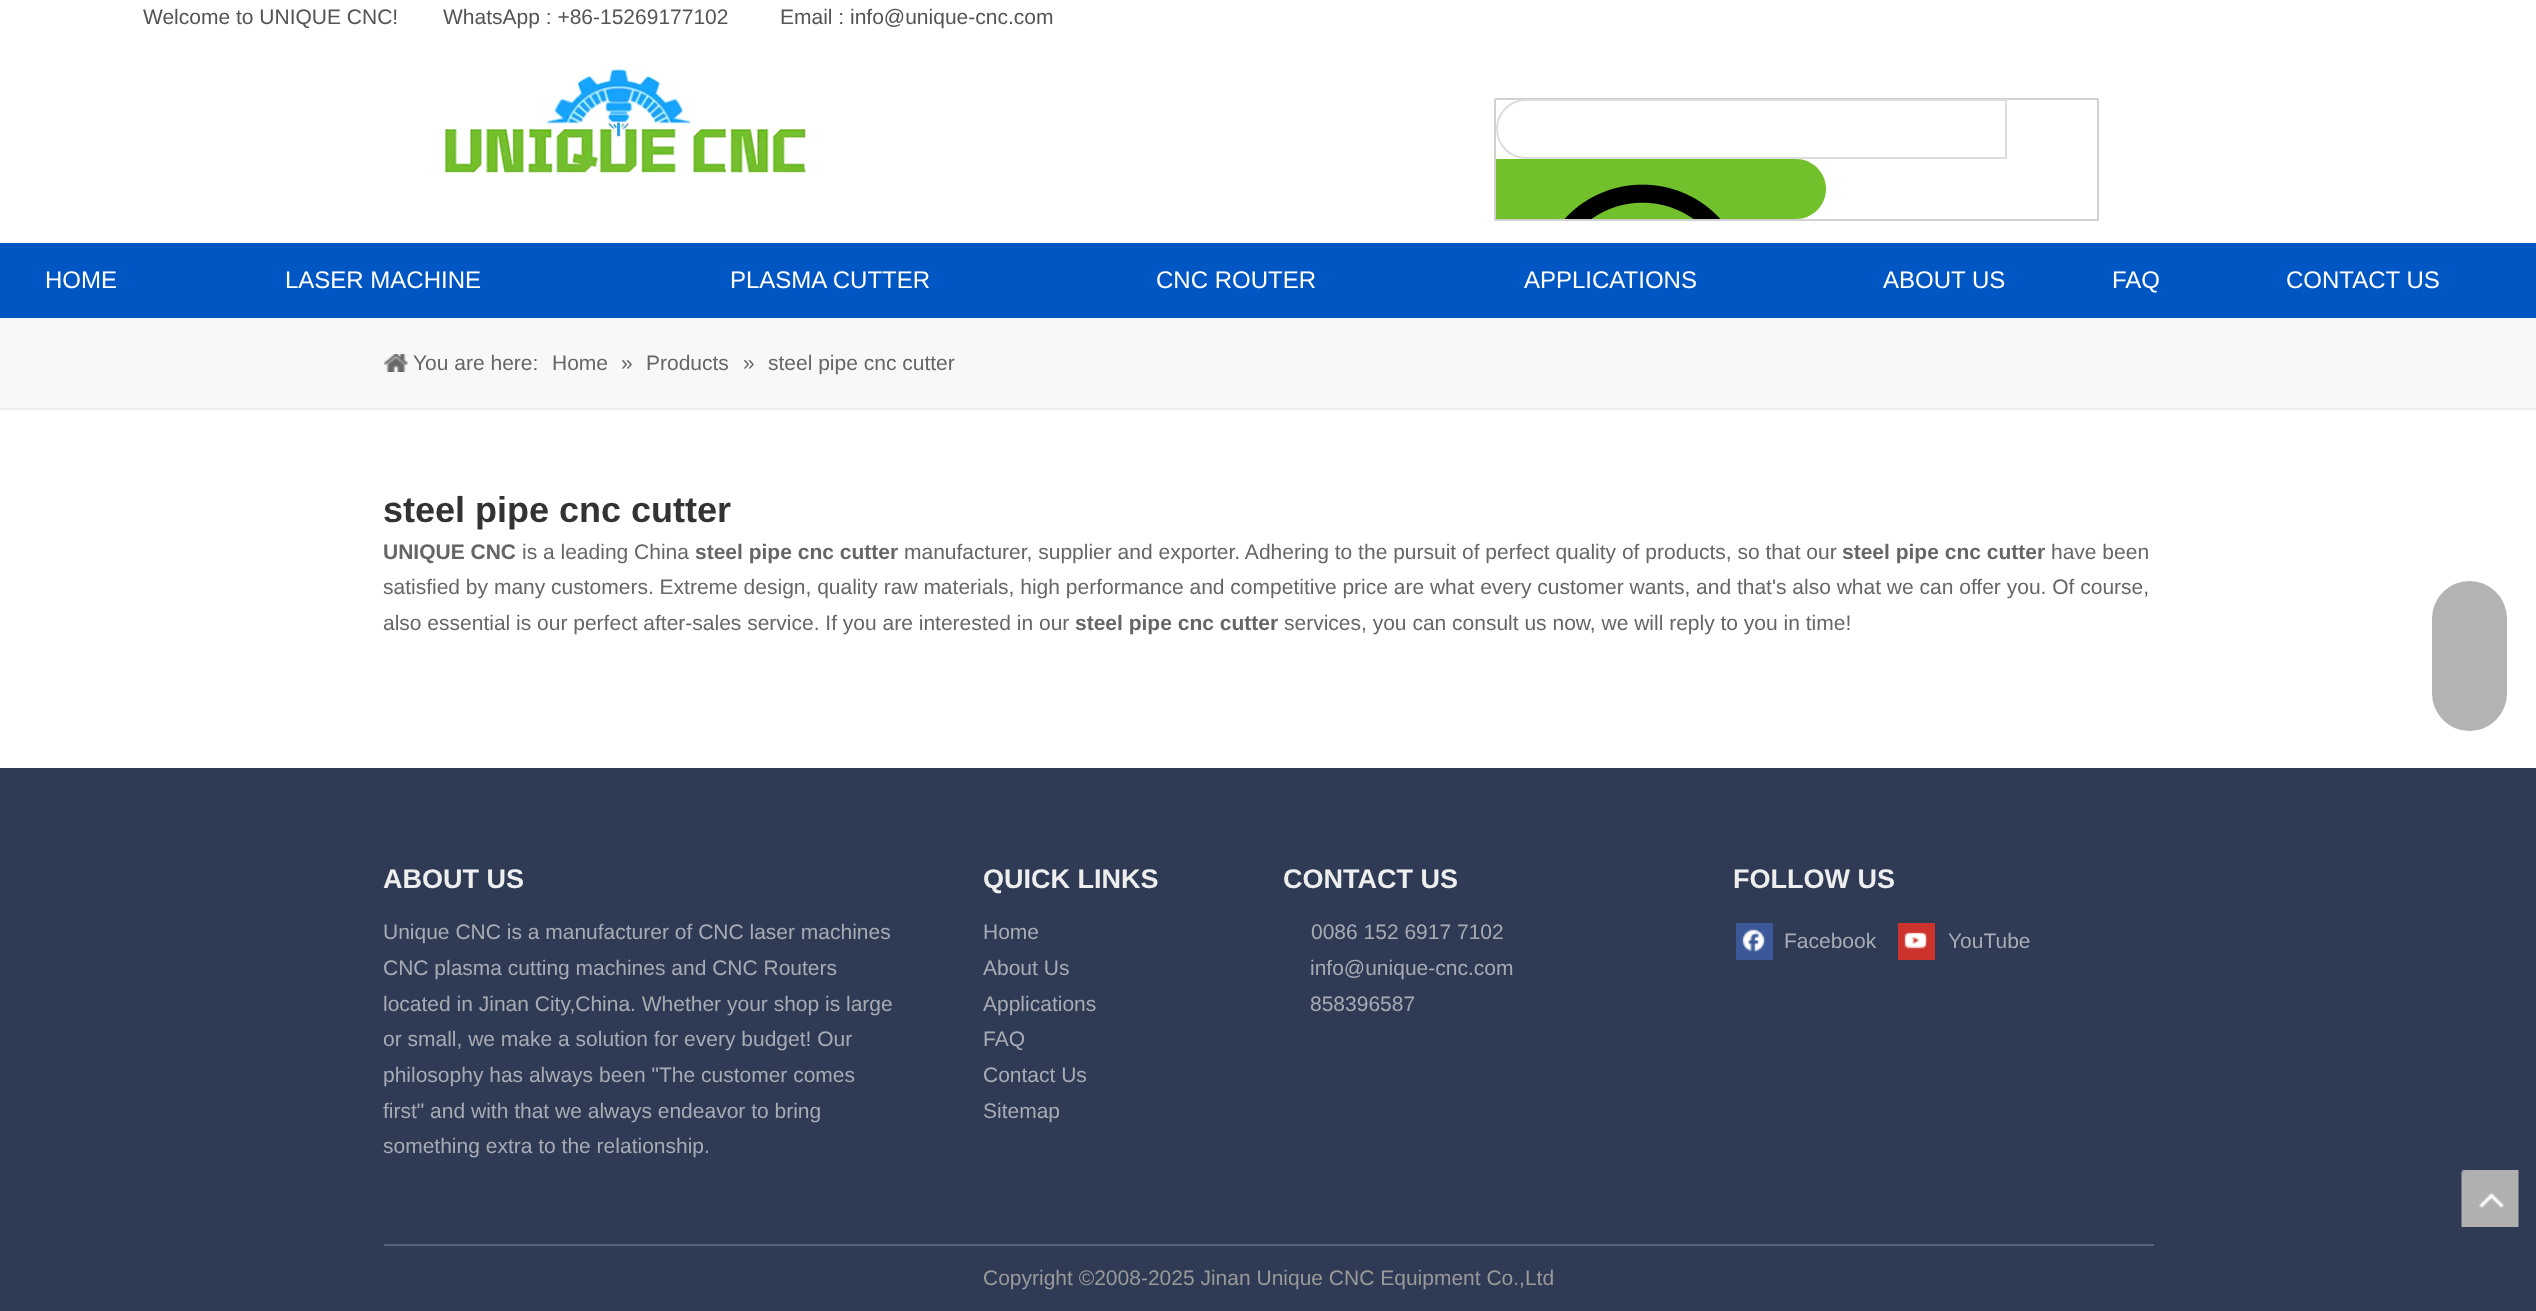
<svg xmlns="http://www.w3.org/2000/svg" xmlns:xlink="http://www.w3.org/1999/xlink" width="2536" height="1311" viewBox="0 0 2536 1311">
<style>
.cls-1{font:21px Liberation Sans;fill:#545454}
.cls-2{font:24px Liberation Sans;fill:#ffffff}
.cls-3{font:21px Liberation Sans;fill:#666666}
.cls-4{font:bold 36px Liberation Sans;fill:#333333}
.cls-5{font:bold 21px Liberation Sans;fill:#666666}
.cls-6{font:bold 27px Liberation Sans;fill:#eeeeee}
.cls-7{font:21px Liberation Sans;fill:#a7abb3}
.cls-8{font:21px Liberation Sans;fill:#999999}
</style>
<rect width="100%" height="100%" fill="#ffffff"/>
<image xlink:href="image0.png" x="445" y="68" width="361" height="107"/>
<rect fill="none" stroke="#d1d1d1" stroke-width="2" x="1495" y="99" width="603" height="121" rx="0.5"/>
<path fill="none" stroke="#dddddd" stroke-width="2" d="M1526 100H2006V158H1526C1510 158 1497 145 1497 129C1497 113 1510 100 1526 100Z"/>
<path fill="#72c02c" d="M1496 159H1796C1812.5 159 1826 172.5 1826 189C1826 205.5 1812.5 219 1796 219H1496Z"/>
<image xlink:href="image1.png" x="1564" y="184" width="157" height="35"/>
<rect fill="#0056c3" x="0" y="243" width="2536" height="75"/>
<rect fill="#f8f8f8" x="0" y="318" width="2536" height="90"/>
<rect fill="#eeeeee" x="0" y="408" width="2536" height="2"/>
<image xlink:href="image2.png" x="384" y="354" width="24" height="18"/>
<rect fill="#2f3a55" x="0" y="768" width="2536" height="543"/>
<rect fill="#3b5998" x="1736" y="923" width="37" height="37"/>
<image xlink:href="image3.png" x="1742" y="929" width="23" height="23"/>
<rect fill="#cd332d" x="1898" y="923" width="37" height="37"/>
<image xlink:href="image4.png" x="1904" y="932" width="23" height="17"/>
<rect fill="#596177" x="384" y="1244" width="1770" height="2"/>
<rect fill="#b3b3b3" x="2432" y="581" width="75" height="150" rx="37.5"/>
<image xlink:href="image5.png" x="2461" y="1170" width="58" height="57"/>
<text class="cls-1" x="143" y="24">Welcome to UNIQUE CNC!</text>
<text class="cls-1" x="443" y="24">WhatsApp : +86-15269177102</text>
<text class="cls-1" x="780" y="24">Email : info@unique-cnc.com</text>
<text class="cls-2" x="45" y="288">HOME</text>
<text class="cls-2" x="285" y="288">LASER MACHINE</text>
<text class="cls-2" x="730" y="288">PLASMA CUTTER</text>
<text class="cls-2" x="1156" y="288">CNC ROUTER</text>
<text class="cls-2" x="1524" y="288">APPLICATIONS</text>
<text class="cls-2" x="1883" y="288">ABOUT US</text>
<text class="cls-2" x="2112" y="288">FAQ</text>
<text class="cls-2" x="2286" y="288">CONTACT US</text>
<text class="cls-3" x="413" y="370">You are here:</text>
<text class="cls-3" x="552" y="370">Home</text>
<text class="cls-3" x="621" y="370">»</text>
<text class="cls-3" x="646" y="370">Products</text>
<text class="cls-3" x="743" y="370">»</text>
<text class="cls-3" x="768" y="370">steel pipe cnc cutter</text>
<text class="cls-4" x="383" y="522">steel pipe cnc cutter</text>
<text class="cls-5" x="383" y="559">UNIQUE CNC</text>
<text class="cls-3" x="522" y="559">is a leading China</text>
<text class="cls-5" x="695" y="559">steel pipe cnc cutter</text>
<text class="cls-3" x="904" y="559">manufacturer, supplier and exporter. Adhering to the pursuit of perfect quality of products, so that our</text>
<text class="cls-5" x="1842" y="559">steel pipe cnc cutter</text>
<text class="cls-3" x="2051" y="559">have been</text>
<text class="cls-3"><tspan x="383" y="594">satisfied by many customers. Extreme design, quality raw materials, high performance and competitive price are what every customer wants, and that's also what we can offer you. Of course,</tspan><tspan x="383" y="630">also essential is our perfect after-sales service. If you are interested in our</tspan></text>
<text class="cls-5" x="1075" y="630">steel pipe cnc cutter</text>
<text class="cls-3" x="1284" y="630">services, you can consult us now, we will reply to you in time!</text>
<text class="cls-6" x="383" y="888">ABOUT US</text>
<text class="cls-7"><tspan x="383" y="939">Unique CNC is a manufacturer of CNC laser machines</tspan><tspan x="383" y="975">CNC plasma cutting machines and CNC Routers</tspan><tspan x="383" y="1011">located in Jinan City,China. Whether your shop is large</tspan><tspan x="383" y="1046">or small, we make a solution for every budget! Our</tspan><tspan x="383" y="1082">philosophy has always been "The customer comes</tspan><tspan x="383" y="1118">first" and with that we always endeavor to bring</tspan><tspan x="383" y="1153">something extra to the relationship.</tspan></text>
<text class="cls-6" x="983" y="888">QUICK LINKS</text>
<text class="cls-7"><tspan x="983" y="939">Home</tspan><tspan x="983" y="975">About Us</tspan><tspan x="983" y="1011">Applications</tspan><tspan x="983" y="1046">FAQ</tspan><tspan x="983" y="1082">Contact Us</tspan><tspan x="983" y="1118">Sitemap</tspan></text>
<text class="cls-6" x="1283" y="888">CONTACT US</text>
<text class="cls-7" x="1311" y="939">0086 152 6917 7102</text>
<text class="cls-7"><tspan x="1310" y="975">info@unique-cnc.com</tspan><tspan x="1310" y="1011">858396587</tspan></text>
<text class="cls-6" x="1733" y="888">FOLLOW US</text>
<text class="cls-7" x="1784" y="948">Facebook</text>
<text class="cls-7" x="1948" y="948">YouTube</text>
<text class="cls-8" x="983" y="1285">Copyright ©2008-2025 Jinan Unique CNC Equipment Co.,Ltd</text>
</svg>
